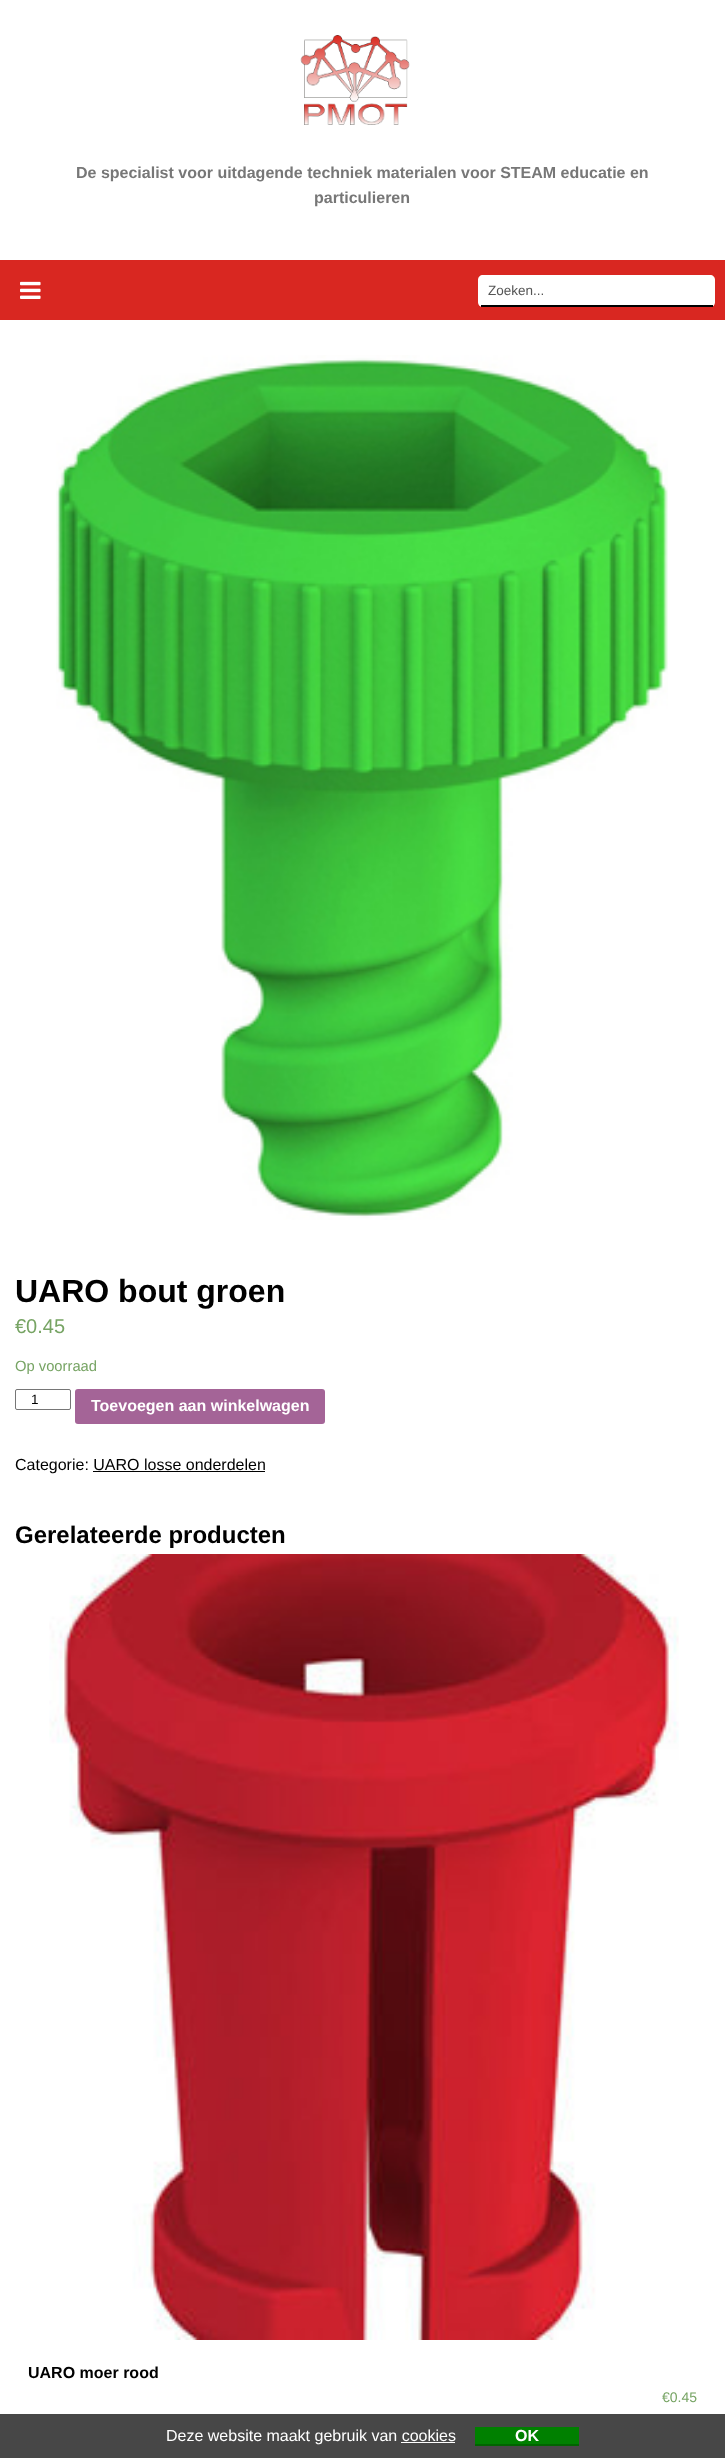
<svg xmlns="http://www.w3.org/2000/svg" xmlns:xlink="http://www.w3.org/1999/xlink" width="725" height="2458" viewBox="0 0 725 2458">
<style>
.cls-1{font:bold 16px Liberation Sans;fill:#777777}
.cls-2{font:13.5px Liberation Sans;fill:#555555}
.cls-3{font:bold 32px Liberation Sans;fill:#000000}
.cls-4{font:20px Liberation Sans;fill:#77a464}
.cls-5{font:14.75px Liberation Sans;fill:#77a464}
.cls-6{font:13.5px Liberation Sans;fill:#000000}
.cls-7{font:bold 16px Liberation Sans;fill:#ffffff}
.cls-8{font:16px Liberation Sans;fill:#000000}
.cls-9{font:bold 24px Liberation Sans;fill:#000000}
.cls-10{font:bold 16px Liberation Sans;fill:#000000}
.cls-11{font:14px Liberation Sans;fill:#77a464}
.cls-12{font:16px Liberation Sans;fill:#ffffff}
</style>
<rect width="100%" height="100%" fill="#ffffff"/>
<image xlink:href="image0.png" x="300" y="35" width="110" height="90"/>
<rect fill="#d92721" x="0" y="260" width="725" height="60"/>
<image xlink:href="image1.png" x="20" y="281" width="21" height="18"/>
<path fill="#ffffff" d="M483 275H675V307H483C480 307 478 305 478 302V280C478 277 480 275 483 275Z"/>
<rect fill="#000000" x="481" y="305" width="194" height="2"/>
<path fill="#ffffff" d="M675 275H710C713 275 715 277 715 280V302C715 305 713 307 710 307H675Z"/>
<rect fill="#000000" x="675" y="305" width="38" height="2"/>
<image xlink:href="image2.png" x="56" y="355" width="612" height="865"/>
<rect fill="none" stroke="#767676" x="15.5" y="1389.5" width="55" height="20" rx="1.5"/>
<rect fill="#a46497" x="75" y="1389" width="250" height="35" rx="3"/>
<rect fill="#000000" x="93" y="1471" width="172" height="1"/>
<image xlink:href="image3.png" x="49" y="1554" width="630" height="786"/>
<rect fill="#474747" x="0" y="2414" width="725" height="44"/>
<rect fill="#008000" x="475" y="2427" width="104" height="17"/>
<rect fill="#006400" x="475" y="2444" width="104" height="2"/>
<rect fill="#ffffff" x="401" y="2442" width="54" height="1"/>
<text class="cls-1" x="76" y="178">De specialist voor uitdagende techniek materialen voor STEAM educatie en</text>
<text class="cls-1" x="314" y="203">particulieren</text>
<text class="cls-2" x="488" y="295">Zoeken...</text>
<text class="cls-3" x="15" y="1302">UARO bout groen</text>
<text class="cls-4" x="15" y="1333">€0.45</text>
<text class="cls-5" x="15" y="1371">Op voorraad</text>
<text class="cls-6" x="31" y="1404">1</text>
<text class="cls-7" x="91" y="1411">Toevoegen aan winkelwagen</text>
<text class="cls-8" x="15" y="1470">Categorie: UARO losse onderdelen</text>
<text class="cls-9" x="15" y="1543">Gerelateerde producten</text>
<text class="cls-10" x="28" y="2378">UARO moer rood</text>
<text class="cls-11" x="662" y="2402">€0.45</text>
<text class="cls-12" x="166" y="2441">Deze website maakt gebruik van cookies</text>
<text class="cls-7" x="515" y="2441">OK</text>
</svg>
